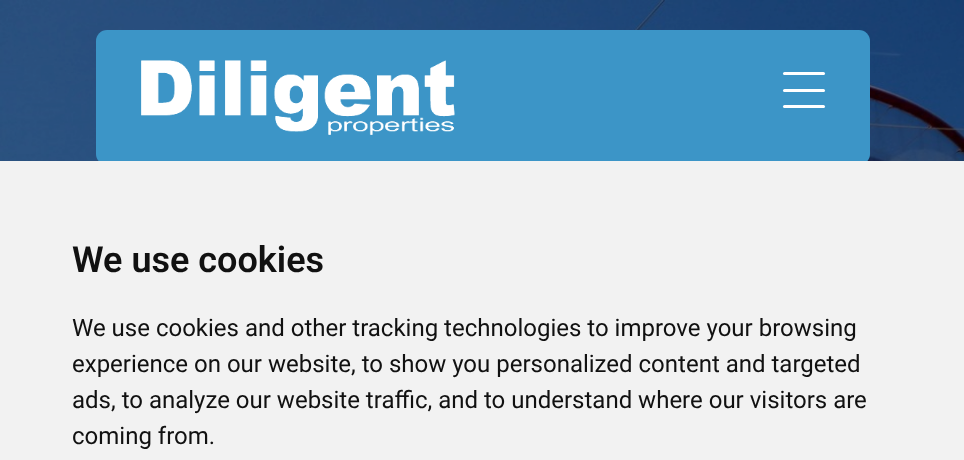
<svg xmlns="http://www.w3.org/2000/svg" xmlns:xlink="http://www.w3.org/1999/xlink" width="964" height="460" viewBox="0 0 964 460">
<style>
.cls-1{font:600 36px Roboto;fill:#111111}
.cls-2{font:24px Roboto;fill:#111111}
</style>
<rect width="100%" height="100%" fill="#ffffff"/>
<image xlink:href="image0.png" x="0" y="0" width="964" height="161"/>
<rect fill="#3c95c7" x="96" y="30" width="774" height="135" rx="11"/>
<image xlink:href="image1.png" x="141" y="60" width="314" height="75"/>
<rect fill="#ffffff" x="783" y="72" width="42" height="3" rx="1.5"/>
<rect fill="#ffffff" x="783" y="89" width="42" height="3" rx="1.5"/>
<rect fill="#ffffff" x="783" y="105" width="42" height="3" rx="1.5"/>
<rect fill="#f2f2f2" x="0" y="161" width="964" height="299"/>
<text class="cls-1" x="72" y="272">We use cookies</text>
<text class="cls-2"><tspan x="72" y="336">We use cookies and other tracking technologies to improve your browsing</tspan><tspan x="72" y="372">experience on our website, to show you personalized content and targeted</tspan><tspan x="72" y="408">ads, to analyze our website traffic, and to understand where our visitors are</tspan><tspan x="72" y="444">coming from.</tspan></text>
</svg>
